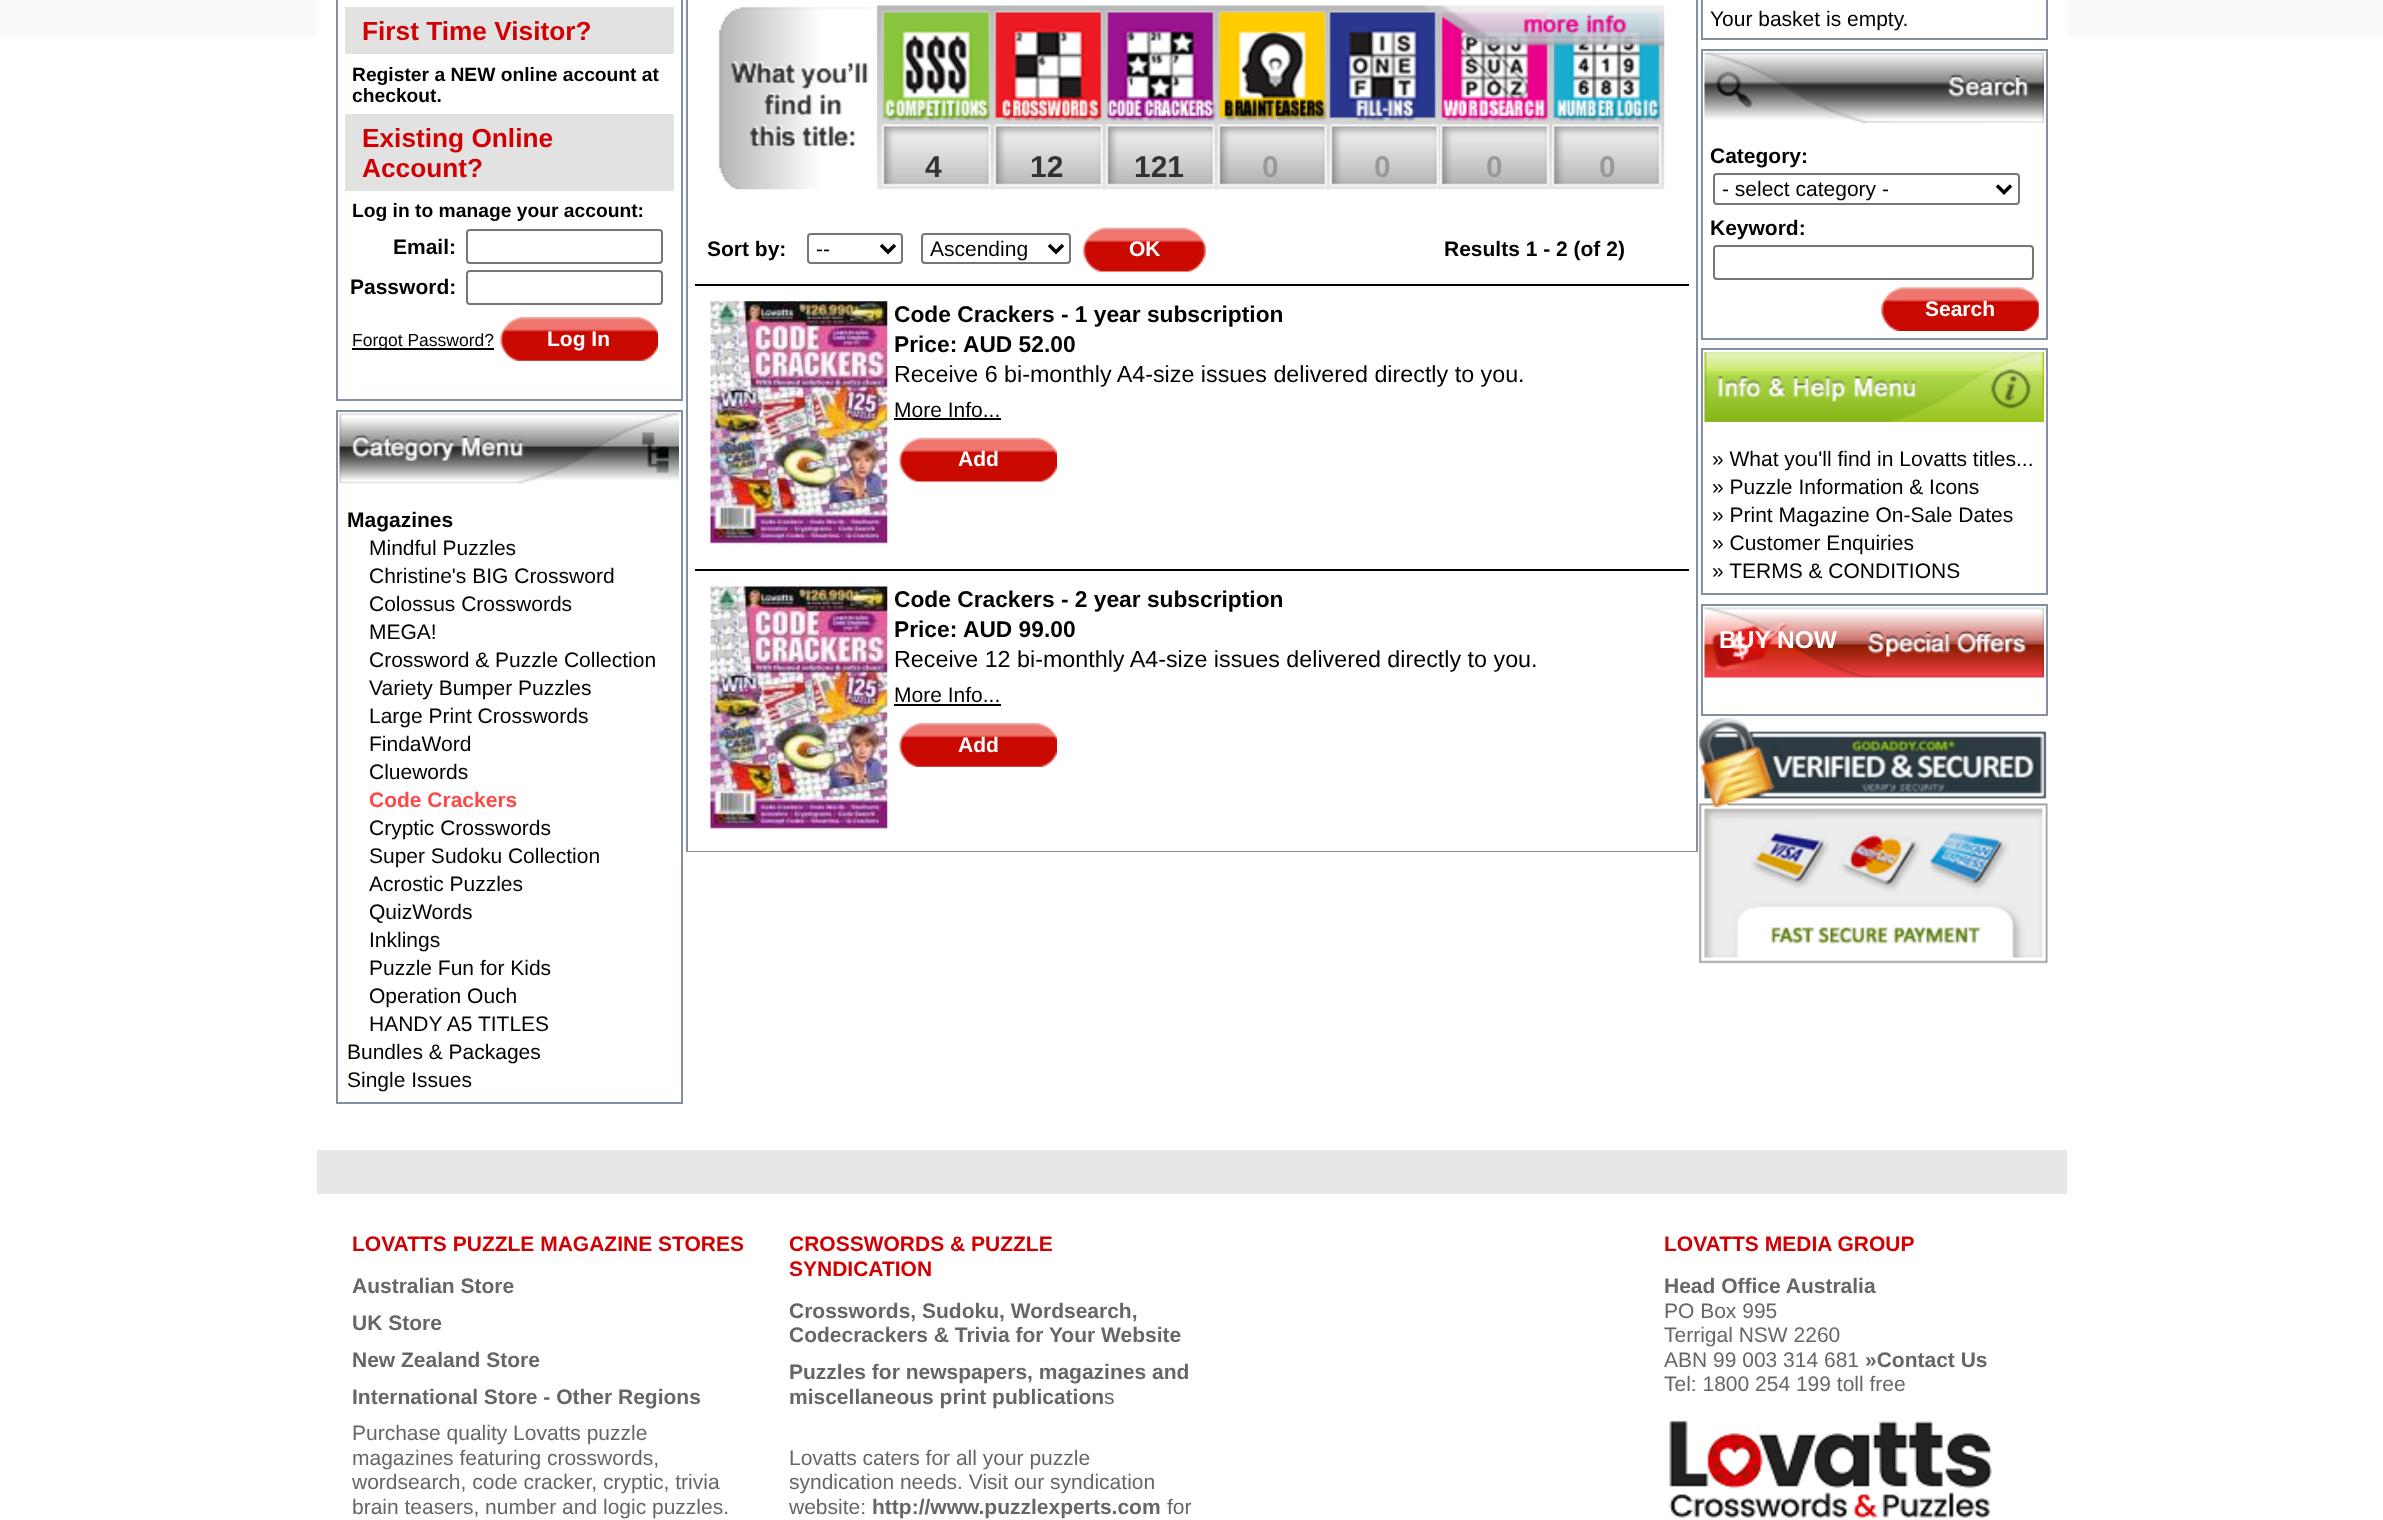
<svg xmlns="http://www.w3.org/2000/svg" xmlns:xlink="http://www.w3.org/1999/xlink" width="2383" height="1520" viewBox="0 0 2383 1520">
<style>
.cls-1{font:bold 26.25px Liberation Sans;fill:#d10003}
.cls-2{font:bold 19.25px Liberation Sans;fill:#000000}
.cls-3{font:bold 21px Liberation Sans;fill:#000000}
.cls-4{font:17.5px Liberation Sans;fill:#000000}
.cls-5{font:bold 21px Liberation Sans;fill:#ffffff}
.cls-6{font:21px Liberation Sans;fill:#000000}
.cls-7{font:bold 21px Liberation Sans;fill:#ff4848}
.cls-8{font:bold 30px Liberation Sans;fill:#333333}
.cls-9{font:bold 30px Liberation Sans;fill:#999999}
.cls-10{font:bold 22.75px Liberation Sans;fill:#000000}
.cls-11{font:23.3px Liberation Sans;fill:#000000}
.cls-12{font:bold 24.5px Liberation Sans;fill:#ffffff}
.cls-13{font:bold 21px Liberation Sans;fill:#d10003}
.cls-14{font:bold 21px Liberation Sans;fill:#666666}
.cls-15{font:21px Liberation Sans;fill:#666666}
</style>
<rect width="100%" height="100%" fill="#ffffff"/>
<rect fill="#fafafa" x="0" y="0" width="2383" height="37"/>
<rect fill="#ffffff" x="317" y="0" width="1750" height="37"/>
<rect fill="none" stroke="#848fa1" stroke-width="2" x="337" y="-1" width="345" height="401"/>
<rect fill="#e2e2e2" x="345" y="7" width="329" height="47"/>
<rect fill="#e2e2e2" x="345" y="114" width="329" height="77"/>
<rect fill="none" stroke="#767676" stroke-width="2" x="467" y="230" width="195" height="33" rx="3"/>
<rect fill="none" stroke="#767676" stroke-width="2" x="467" y="271" width="195" height="33" rx="3"/>
<rect fill="#000000" x="352" y="348" width="142" height="2"/>
<image xlink:href="image0.png" x="500" y="317" width="158" height="44"/>
<rect fill="none" stroke="#848fa1" stroke-width="2" x="337" y="411" width="345" height="692"/>
<image xlink:href="image1.png" x="339" y="413" width="340" height="71"/>
<rect fill="none" stroke="#848fa1" stroke-width="2" x="687" y="-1" width="1010" height="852"/>
<rect fill="#ffffff" x="688" y="850" width="1008" height="1"/>
<image xlink:href="image2.png" x="876" y="5" width="789" height="185"/>
<image xlink:href="image3.png" x="719" y="5" width="158" height="185"/>
<rect fill="none" stroke="#767676" stroke-width="2" x="808" y="234" width="94" height="29" rx="3"/>
<path fill="none" stroke="#000000" stroke-width="3.5" d="M881 245L888 252L895 245"/>
<rect fill="none" stroke="#767676" stroke-width="2" x="922" y="234" width="148" height="29" rx="3"/>
<path fill="none" stroke="#000000" stroke-width="3.5" d="M1049 245L1056 252L1063 245"/>
<image xlink:href="image4.png" x="1083" y="227" width="123" height="45"/>
<rect fill="#000000" x="695" y="284" width="994" height="2"/>
<image xlink:href="image5.png" x="710" y="301" width="178" height="244"/>
<rect fill="#000000" x="894" y="418" width="107" height="2"/>
<image xlink:href="image6.png" x="899" y="437" width="158" height="45"/>
<rect fill="#000000" x="695" y="569" width="994" height="2"/>
<image xlink:href="image7.png" x="710" y="586" width="178" height="244"/>
<rect fill="#000000" x="894" y="704" width="107" height="2"/>
<image xlink:href="image8.png" x="899" y="723" width="158" height="44"/>
<rect fill="none" stroke="#848fa1" stroke-width="2" x="1702" y="-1" width="345" height="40"/>
<rect fill="none" stroke="#848fa1" stroke-width="2" x="1702" y="50" width="345" height="289"/>
<image xlink:href="image9.png" x="1704" y="52" width="340" height="71"/>
<rect fill="none" stroke="#767676" stroke-width="2" x="1714" y="174" width="305" height="30" rx="3"/>
<path fill="none" stroke="#000000" stroke-width="3.5" d="M1997 185.5L2004 192.5L2011 185.5"/>
<rect fill="none" stroke="#767676" stroke-width="2" x="1714" y="246" width="319" height="33" rx="3"/>
<image xlink:href="image10.png" x="1881" y="287" width="158" height="44"/>
<rect fill="none" stroke="#848fa1" stroke-width="2" x="1702" y="349" width="345" height="245"/>
<image xlink:href="image11.png" x="1704" y="352" width="340" height="70"/>
<rect fill="none" stroke="#848fa1" stroke-width="2" x="1702" y="605" width="345" height="110"/>
<image xlink:href="image12.png" x="1704" y="607" width="340" height="71"/>
<image xlink:href="image13.png" x="1699" y="717" width="349" height="247"/>
<rect fill="#e7e7e7" x="317" y="1150" width="1750" height="44"/>
<image xlink:href="image14.png" x="1669" y="1420" width="323" height="98"/>
<text class="cls-1" x="362" y="40">First Time Visitor?</text>
<text class="cls-2"><tspan x="352" y="81">Register a NEW online account at</tspan><tspan x="352" y="102">checkout.</tspan></text>
<text class="cls-1"><tspan x="362" y="147">Existing Online</tspan><tspan x="362" y="177">Account?</tspan></text>
<text class="cls-2" x="352" y="217">Log in to manage your account:</text>
<text class="cls-3" x="393" y="254">Email:</text>
<text class="cls-3" x="350" y="294">Password:</text>
<text class="cls-4" x="352" y="346">Forgot Password?</text>
<text class="cls-5" x="547" y="346">Log In</text>
<text class="cls-3" x="347" y="527">Magazines</text>
<text class="cls-6"><tspan x="369" y="555">Mindful Puzzles</tspan><tspan x="369" y="583">Christine's BIG Crossword</tspan><tspan x="369" y="611">Colossus Crosswords</tspan><tspan x="369" y="639">MEGA!</tspan><tspan x="369" y="667">Crossword &amp; Puzzle Collection</tspan><tspan x="369" y="695">Variety Bumper Puzzles</tspan><tspan x="369" y="723">Large Print Crosswords</tspan><tspan x="369" y="751">FindaWord</tspan><tspan x="369" y="779">Cluewords</tspan></text>
<text class="cls-7" x="369" y="807">Code Crackers</text>
<text class="cls-6"><tspan x="369" y="835">Cryptic Crosswords</tspan><tspan x="369" y="863">Super Sudoku Collection</tspan><tspan x="369" y="891">Acrostic Puzzles</tspan><tspan x="369" y="919">QuizWords</tspan><tspan x="369" y="947">Inklings</tspan><tspan x="369" y="975">Puzzle Fun for Kids</tspan><tspan x="369" y="1003">Operation Ouch</tspan><tspan x="369" y="1031">HANDY A5 TITLES</tspan></text>
<text class="cls-6"><tspan x="347" y="1059">Bundles &amp; Packages</tspan><tspan x="347" y="1087">Single Issues</tspan></text>
<text class="cls-8" x="925" y="177">4</text>
<text class="cls-8" x="1030" y="177">12</text>
<text class="cls-8" x="1134" y="177">121</text>
<text class="cls-9" x="1262" y="177">0</text>
<text class="cls-9" x="1374" y="177">0</text>
<text class="cls-9" x="1486" y="177">0</text>
<text class="cls-9" x="1599" y="177">0</text>
<text class="cls-3" x="707" y="256">Sort by:</text>
<text class="cls-6" x="816" y="256">--</text>
<text class="cls-6" x="930" y="256">Ascending</text>
<text class="cls-5" x="1129" y="256">OK</text>
<text class="cls-3" x="1444" y="256">Results 1 - 2 (of 2)</text>
<text class="cls-10"><tspan x="894" y="322">Code Crackers - 1 year subscription</tspan><tspan x="894" y="352">Price:</tspan></text>
<text class="cls-10" x="963" y="352">AUD 52.00</text>
<text class="cls-11" x="894" y="382">Receive 6 bi-monthly A4-size issues delivered directly to you.</text>
<text class="cls-6" x="894" y="417">More Info...</text>
<text class="cls-5" x="958" y="466">Add</text>
<text class="cls-10"><tspan x="894" y="607">Code Crackers - 2 year subscription</tspan><tspan x="894" y="637">Price:</tspan></text>
<text class="cls-10" x="963" y="637">AUD 99.00</text>
<text class="cls-11" x="894" y="667">Receive 12 bi-monthly A4-size issues delivered directly to you.</text>
<text class="cls-6" x="894" y="702">More Info...</text>
<text class="cls-5" x="958" y="752">Add</text>
<text class="cls-6" x="1710" y="26">Your basket is empty.</text>
<text class="cls-3" x="1710" y="163">Category:</text>
<text class="cls-6" x="1722" y="196">- select category -</text>
<text class="cls-3" x="1710" y="235">Keyword:</text>
<text class="cls-5" x="1925" y="316">Search</text>
<text class="cls-6"><tspan x="1712" y="466">» What you'll find in Lovatts titles...</tspan><tspan x="1712" y="494">» Puzzle Information &amp; Icons</tspan><tspan x="1712" y="522">» Print Magazine On-Sale Dates</tspan><tspan x="1712" y="550">» Customer Enquiries</tspan><tspan x="1712" y="578">» TERMS &amp; CONDITIONS</tspan></text>
<text class="cls-12" x="1719" y="648">BUY NOW</text>
<text class="cls-13" x="352" y="1251">LOVATTS PUZZLE MAGAZINE STORES</text>
<text class="cls-14"><tspan x="352" y="1293">Australian Store</tspan><tspan x="352" y="1330">UK Store</tspan><tspan x="352" y="1367">New Zealand Store</tspan><tspan x="352" y="1404">International Store - Other Regions</tspan></text>
<text class="cls-15"><tspan x="352" y="1440">Purchase quality Lovatts puzzle</tspan><tspan x="352" y="1465">magazines featuring crosswords,</tspan><tspan x="352" y="1489">wordsearch, code cracker, cryptic, trivia</tspan><tspan x="352" y="1514">brain teasers, number and logic puzzles.</tspan></text>
<text class="cls-13"><tspan x="789" y="1251">CROSSWORDS &amp; PUZZLE</tspan><tspan x="789" y="1276">SYNDICATION</tspan></text>
<text class="cls-14"><tspan x="789" y="1318">Crosswords, Sudoku, Wordsearch,</tspan><tspan x="789" y="1342">Codecrackers &amp; Trivia for Your Website</tspan><tspan x="789" y="1379">Puzzles for newspapers, magazines and</tspan><tspan x="789" y="1404">miscellaneous print publication</tspan></text>
<text class="cls-15" x="1104" y="1404">s</text>
<text class="cls-15"><tspan x="789" y="1465">Lovatts caters for all your puzzle</tspan><tspan x="789" y="1489">syndication needs. Visit our syndication</tspan><tspan x="789" y="1514">website:</tspan></text>
<text class="cls-14" x="872" y="1514">http://www.puzzlexperts.com</text>
<text class="cls-15" x="1167" y="1514">for</text>
<text class="cls-13" x="1664" y="1251">LOVATTS MEDIA GROUP</text>
<text class="cls-14" x="1664" y="1293">Head Office Australia</text>
<text class="cls-15"><tspan x="1664" y="1318">PO Box 995</tspan><tspan x="1664" y="1342">Terrigal NSW 2260</tspan><tspan x="1664" y="1367">ABN 99 003 314 681</tspan></text>
<text class="cls-14" x="1865" y="1367">»Contact Us</text>
<text class="cls-15" x="1664" y="1391">Tel: 1800 254 199 toll free</text>
</svg>
